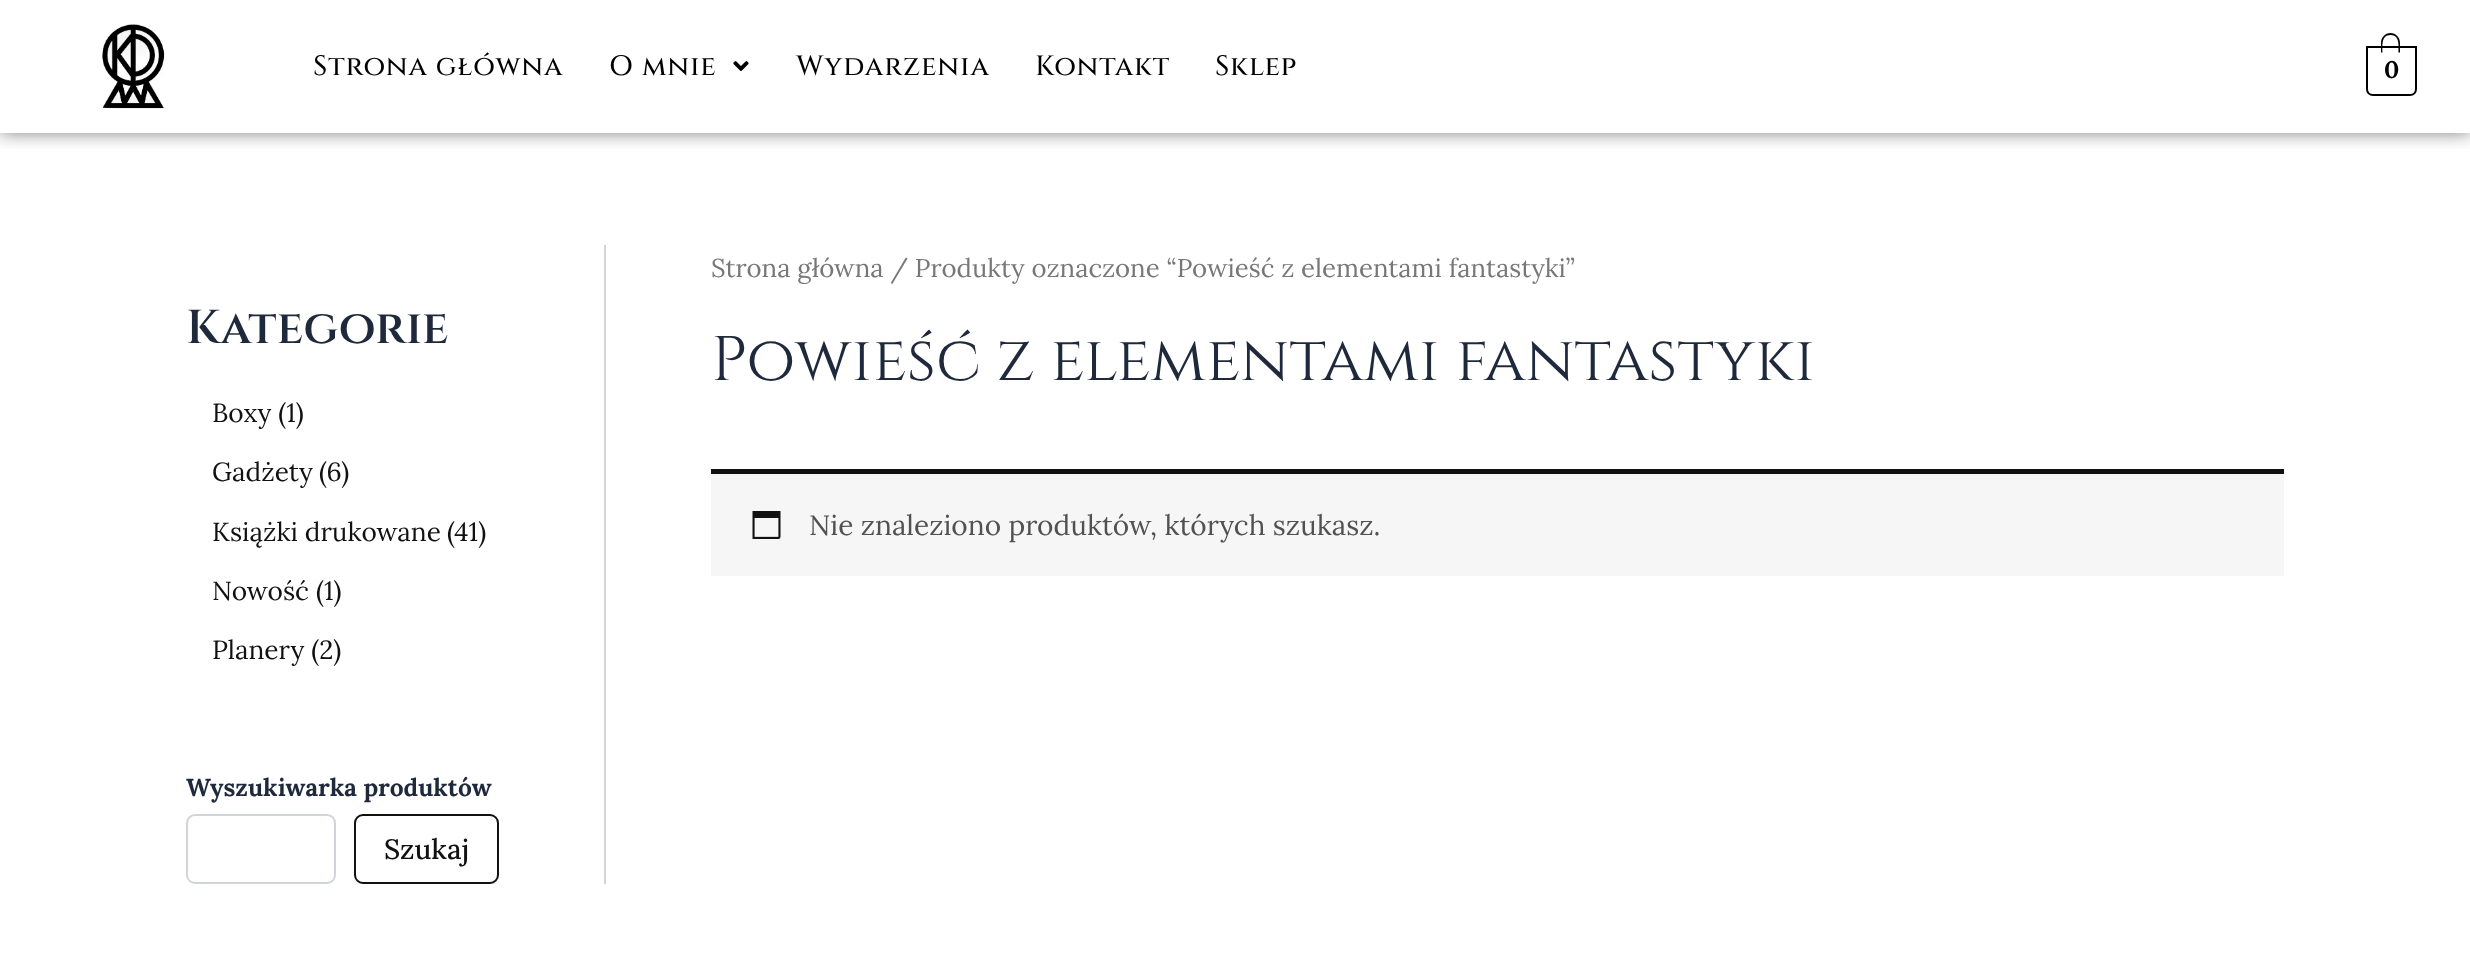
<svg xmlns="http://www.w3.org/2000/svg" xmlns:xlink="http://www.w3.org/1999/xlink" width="2470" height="975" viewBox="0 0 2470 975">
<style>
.cls-1{font:500 28px Cinzel;letter-spacing:0.9px;fill:#000000}
.cls-2{font:bold 24px Lora;fill:#000000}
.cls-3{font:600 47.5px Cinzel;fill:#1e293b}
.cls-4{font:26.25px Lora;fill:#111111}
.cls-5{font:bold 24.5px Lora;fill:#1e293b}
.cls-6{font:500 28px Lora;fill:#111111}
.cls-7{font:25.75px Lora;fill:#777777}
.cls-8{font:63px Cinzel;fill:#1e293b}
.cls-9{font:28px Lora;fill:#515151}
</style>
<defs>
<clipPath id="clip1"><rect x="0" y="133" width="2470" height="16"/></clipPath>
<clipPath id="clip2"><rect x="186" y="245" width="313" height="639"/></clipPath>
</defs>
<rect width="100%" height="100%" fill="#ffffff"/>
<g clip-path="url(#clip1)">
<rect fill="#000000" fill-opacity="0.5" filter="blur(9px)" x="0" y="0" width="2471" height="133"/>
</g>
<image xlink:href="image0.png" x="102" y="24" width="63" height="85"/>
<image xlink:href="image1.png" x="733" y="61" width="16" height="10"/>
<path fill="none" stroke="#000000" stroke-width="2" d="M2367 47H2416V89C2416 92.5 2413.5 95 2410 95H2373C2369.5 95 2367 92.5 2367 89Z"/>
<path fill="#000000" fill-rule="evenodd" d="M2390.5 33C2396 33 2400 37.5 2400 43V52.5H2381V43C2381 37.5 2385 33 2390.5 33ZM2390.5 35C2400 35 2398.5 46 2398.5 52.5H2382.5C2382.5 46 2381 35 2390.5 35Z"/>
<rect fill="#d1d5db" x="604" y="245" width="2" height="639"/>
<rect fill="none" stroke="#d1d5db" stroke-width="2" x="187" y="815" width="148" height="68" rx="8"/>
<g clip-path="url(#clip2)">
<rect fill="#000000" fill-opacity="0.05" filter="blur(2px)" x="354" y="816" width="145" height="70" rx="9"/>
</g>
<rect fill="#ffffff" stroke="#111111" stroke-width="2" x="355" y="815" width="143" height="68" rx="8"/>
<rect fill="#f7f6f7" x="711" y="474" width="1573" height="102"/>
<rect fill="#111111" x="711" y="469" width="1573" height="5"/>
<image xlink:href="image2.png" x="752" y="511" width="29" height="28"/>
<text class="cls-1" x="313" y="75">Strona główna</text>
<text class="cls-1" x="609" y="75">O mnie</text>
<text class="cls-1" x="796" y="75">Wydarzenia</text>
<text class="cls-1" x="1035" y="75">Kontakt</text>
<text class="cls-1" x="1215" y="75">Sklep</text>
<text class="cls-2" x="2384" y="78">0</text>
<text class="cls-3" x="186" y="343">Kategorie</text>
<text class="cls-4" x="212" y="422">Boxy (1)</text>
<text class="cls-4" x="212" y="481">Gadżety</text>
<text class="cls-4" x="319" y="481">(6)</text>
<text class="cls-4" x="212" y="541">Książki drukowane</text>
<text class="cls-4" x="447" y="541">(41)</text>
<text class="cls-4" x="212" y="600">Nowość (1)</text>
<text class="cls-4" x="212" y="659">Planery (2)</text>
<text class="cls-5" x="186" y="796">Wyszukiwarka produktów</text>
<text class="cls-6" x="384" y="859">Szukaj</text>
<text class="cls-7" x="711" y="277">Strona główna / Produkty oznaczone “Powieść z elementami fantastyki”</text>
<text class="cls-8" x="711" y="380">Powieść z elementami fantastyki</text>
<text class="cls-9" x="809" y="535">Nie znaleziono produktów, których szukasz.</text>
</svg>
